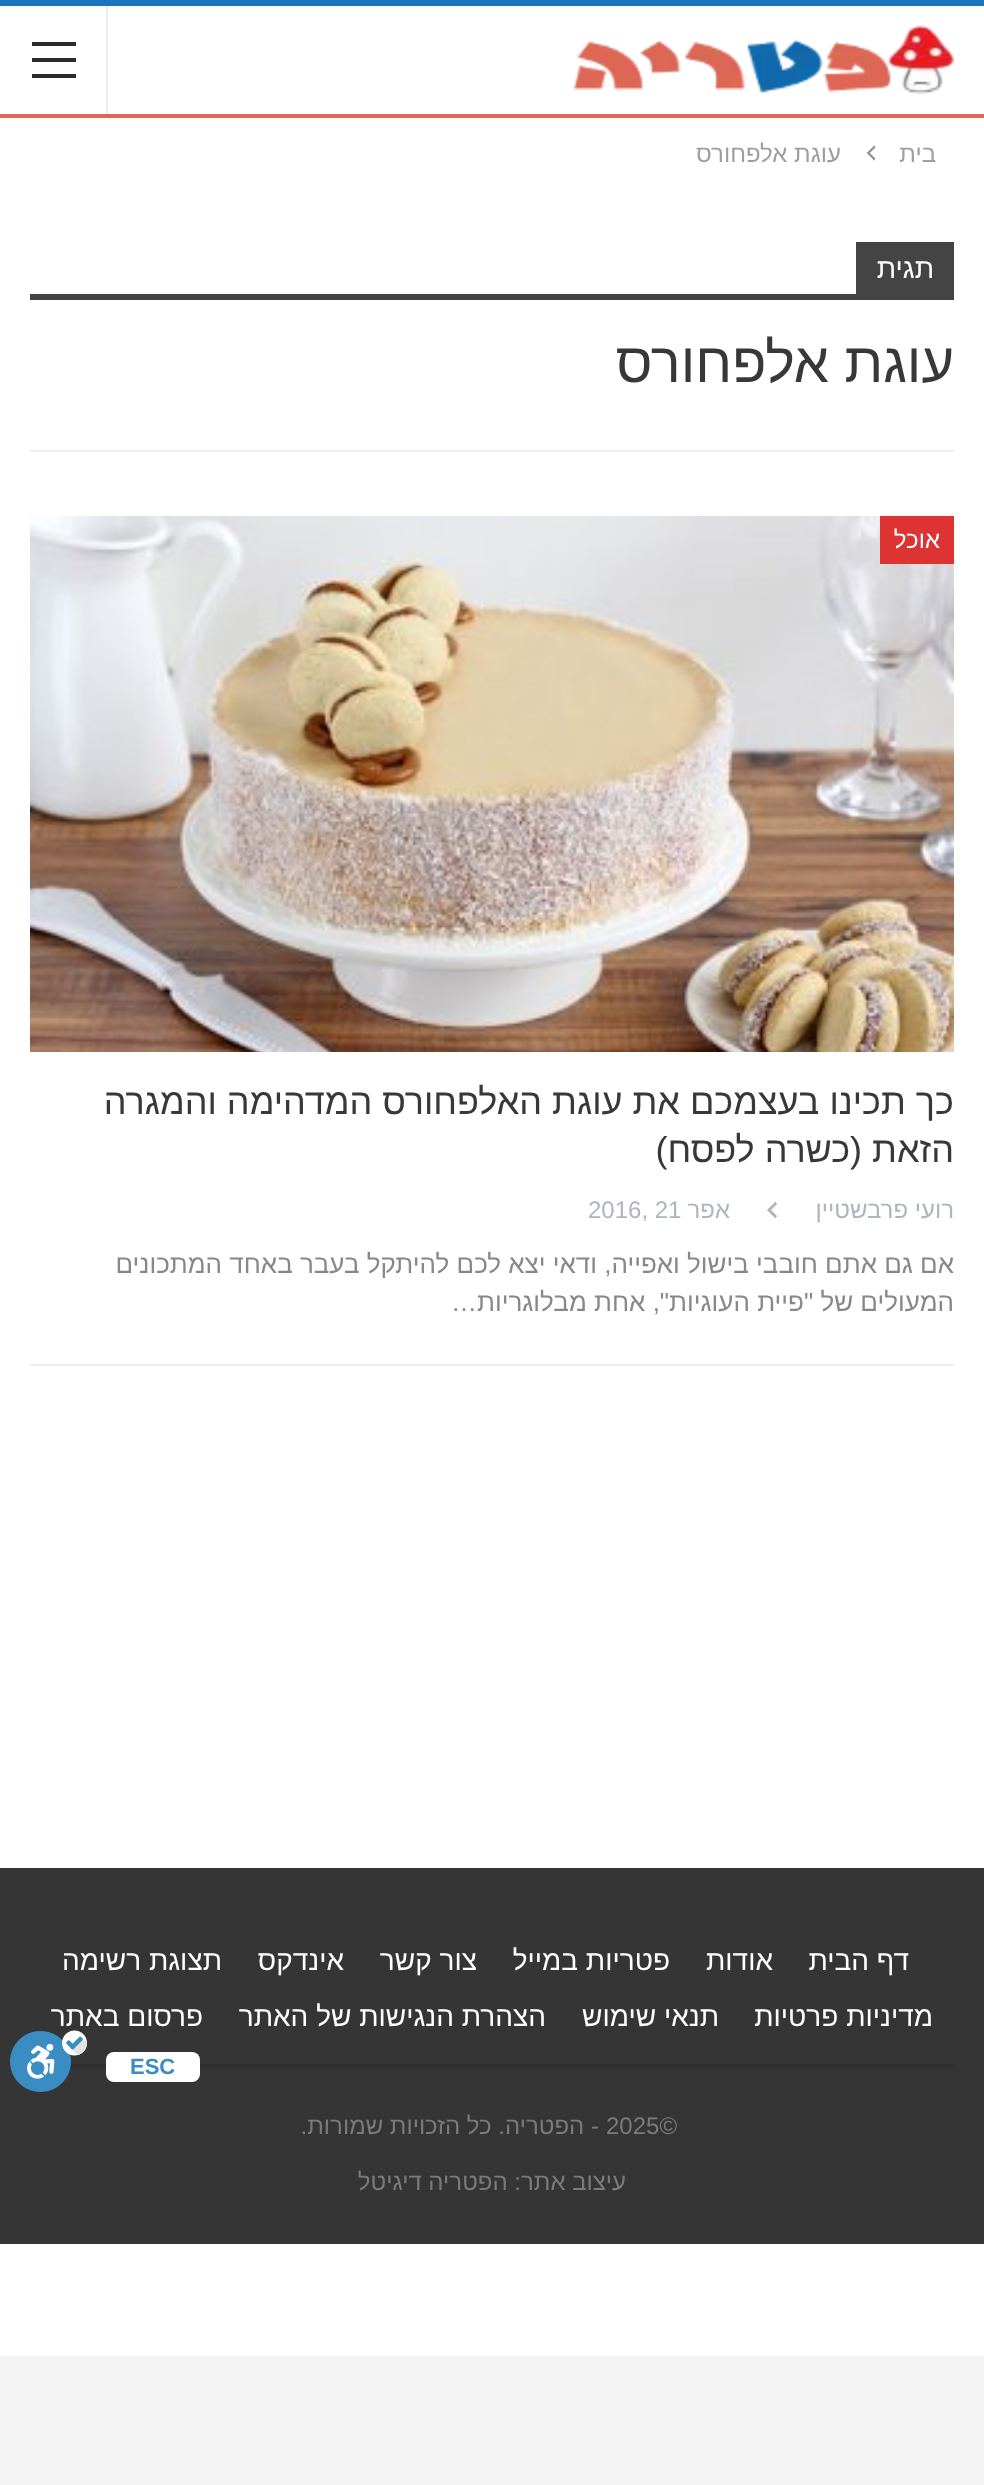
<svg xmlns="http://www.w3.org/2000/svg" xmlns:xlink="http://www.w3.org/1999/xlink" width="984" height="2485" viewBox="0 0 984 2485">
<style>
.cls-1{font:24px Liberation Sans;direction:rtl;fill:#9e9e9e}
.cls-2{font:28px Liberation Sans;direction:rtl;fill:#ffffff}
.cls-3{font:56px Liberation Sans;direction:rtl;fill:#383838}
.cls-4{font:24px Liberation Sans;direction:rtl;fill:#ffffff}
.cls-5{font:36px Liberation Sans;direction:rtl;fill:#383838}
.cls-6{font:24px Liberation Sans;direction:rtl;fill:#adb5bd}
.cls-7{font:24px Liberation Sans;fill:#adb5bd}
.cls-8{font:26px Liberation Sans;direction:rtl;fill:#888888}
.cls-9{font:24px Liberation Sans;fill:#7b7b7b}
.cls-10{font:24px Liberation Sans;direction:rtl;fill:#7b7b7b}
.cls-11{font:bold 22px Liberation Sans;fill:#3a8dc2}
</style>
<rect width="100%" height="100%" fill="#f3f3f3"/>
<rect fill="#1e73be" x="0" y="0" width="984" height="6"/>
<rect fill="#ffffff" x="0" y="6" width="984" height="2350"/>
<rect fill="#dd6854" x="0" y="114" width="984" height="4"/>
<image xlink:href="image0.png" x="574" y="25" width="380" height="70"/>
<rect fill="#ededed" x="106" y="6" width="2" height="108"/>
<rect fill="#2c2c2c" x="32" y="58" width="44" height="4"/>
<rect fill="#2c2c2c" x="32" y="42" width="44" height="4"/>
<rect fill="#2c2c2c" x="32" y="74" width="44" height="4"/>
<image xlink:href="image1.png" x="866" y="145" width="10" height="16"/>
<rect fill="#f0f0f0" x="30" y="450" width="924" height="2"/>
<rect fill="#444444" x="856" y="242" width="98" height="52"/>
<rect fill="#444444" x="30" y="294" width="924" height="6"/>
<image xlink:href="image2.png" x="30" y="516" width="924" height="536"/>
<rect fill="#dd3333" x="880" y="516" width="74" height="48"/>
<path fill="#adb5bd" d="M777 1204L771 1210L777 1216L775.5 1218.5L767 1210L775.5 1201.5Z"/>
<rect fill="#ededed" x="30" y="1364" width="924" height="2"/>
<rect fill="#353535" x="0" y="1868" width="984" height="376"/>
<rect fill="#2f2f2f" x="70" y="2064" width="884" height="4"/>
<rect fill="#ffffff" x="106" y="2052" width="94" height="30" rx="8"/>
<image xlink:href="image3.png" x="10" y="2030" width="78" height="62"/>
<text class="cls-1" x="936" y="162">בית</text>
<text class="cls-1" x="841" y="162">עוגת אלפחורס</text>
<text class="cls-2" x="934" y="278">תגית</text>
<text class="cls-3" x="954" y="382">עוגת אלפחורס</text>
<text class="cls-4" x="940" y="548">אוכל</text>
<text class="cls-5"><tspan x="954" y="1114">כך תכינו בעצמכם את עוגת האלפחורס המדהימה והמגרה</tspan><tspan x="954" y="1162">הזאת (כשרה לפסח)</tspan></text>
<text class="cls-6" x="954" y="1218">רועי פרבשטיין</text>
<text class="cls-6" x="730" y="1218">אפר</text>
<text class="cls-7" x="588" y="1218">2016, 21</text>
<text class="cls-8"><tspan x="954" y="1273">אם גם אתם חובבי בישול ואפייה, ודאי יצא לכם להיתקל בעבר באחד המתכונים</tspan><tspan x="954" y="1311">המעולים של "פיית העוגיות", אחת מבלוגריות…</tspan></text>
<text class="cls-2" x="909" y="1970">דף הבית</text>
<text class="cls-2" x="773" y="1970">אודות</text>
<text class="cls-2" x="670" y="1970">פטריות במייל</text>
<text class="cls-2" x="477" y="1970">צור קשר</text>
<text class="cls-2" x="344" y="1970">אינדקס</text>
<text class="cls-2" x="222" y="1970">תצוגת רשימה</text>
<text class="cls-2" x="933" y="2026">מדיניות פרטיות</text>
<text class="cls-2" x="719" y="2026">תנאי שימוש</text>
<text class="cls-2" x="546" y="2026">הצהרת הנגישות של האתר</text>
<text class="cls-2" x="203" y="2026">פרסום באתר</text>
<text class="cls-9" x="606" y="2134">2025©</text>
<text class="cls-10" x="599" y="2134">- הפטריה. כל הזכויות שמורות.</text>
<text class="cls-10" x="626" y="2190">עיצוב אתר: הפטריה דיגיטל</text>
<text class="cls-11" x="130" y="2074">ESC</text>
</svg>
